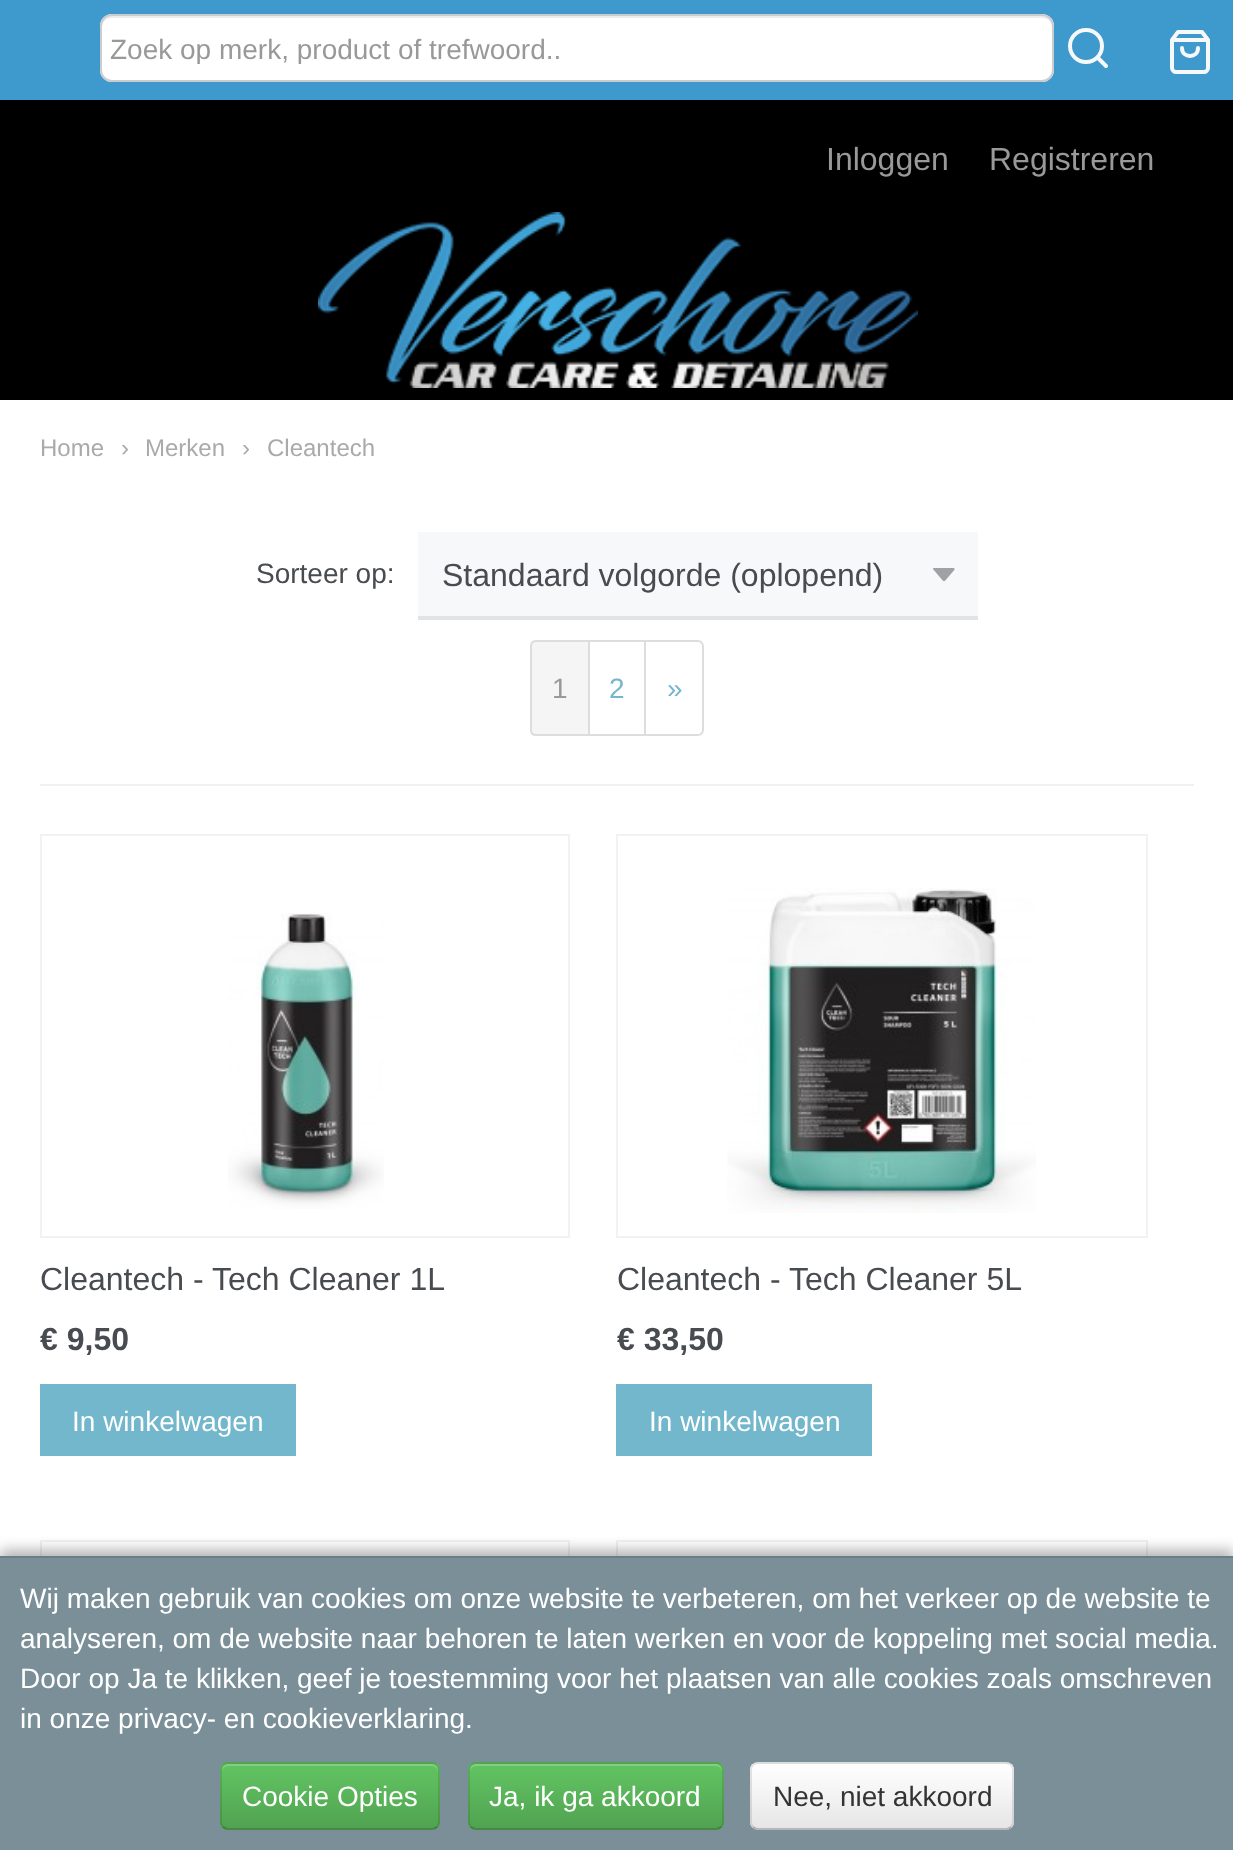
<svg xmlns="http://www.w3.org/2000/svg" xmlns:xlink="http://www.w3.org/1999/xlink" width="1233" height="1850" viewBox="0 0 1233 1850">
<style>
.cls-1{font:28px Liberation Sans;fill:#999999}
.cls-2{font:32px Liberation Sans;fill:#999999}
.cls-3{font:24px Liberation Sans;fill:#a9aaaa}
.cls-4{font:28px Liberation Sans;fill:#484b4f}
.cls-5{font:32px Liberation Sans;fill:#484b4f}
.cls-6{font:28px Liberation Sans;fill:#73b7cc}
.cls-7{font:bold 32px Liberation Sans;fill:#484b4f}
.cls-8{font:28px Liberation Sans;fill:#ffffff}
.cls-9{font:28px Liberation Sans;fill:#333333}
</style>
<defs>
<clipPath id="clip1"><rect x="220" y="1762" width="220" height="68" rx="8"/></clipPath>
<linearGradient id="g1" gradientUnits="userSpaceOnUse" x1="330" y1="1764" x2="330" y2="1828"><stop offset="0" stop-color="#62c462"/><stop offset="1" stop-color="#51a351"/></linearGradient>
<clipPath id="clip2"><rect x="468" y="1762" width="256" height="68" rx="8"/></clipPath>
<linearGradient id="g2" gradientUnits="userSpaceOnUse" x1="596" y1="1764" x2="596" y2="1828"><stop offset="0" stop-color="#62c462"/><stop offset="1" stop-color="#51a351"/></linearGradient>
<clipPath id="clip3"><rect x="750" y="1762" width="264" height="68" rx="8"/></clipPath>
<linearGradient id="g3" gradientUnits="userSpaceOnUse" x1="882" y1="1764" x2="882" y2="1828"><stop offset="0" stop-color="#ffffff"/><stop offset="1" stop-color="#e6e6e6"/></linearGradient>
<clipPath id="clip4"><rect x="110" y="32" width="934" height="32"/></clipPath>
</defs>
<rect width="100%" height="100%" fill="#ffffff"/>
<rect fill="#3e99cd" x="0" y="0" width="1233" height="100"/>
<rect fill="#ffffff" x="100" y="14" width="954" height="68" rx="12"/>
<path fill="#ececec" d="M112 18H1042C1048 18 1052 22 1052 28V26C1052 20 1048 16 1042 16H112C106 16 102 20 102 26V28C102 22 106 18 112 18Z"/>
<rect fill="none" stroke="#cccccc" stroke-width="2" x="101" y="15" width="952" height="66" rx="11"/>
<circle fill="none" stroke="#f7f8f9" stroke-width="4" cx="1086" cy="46" r="16"/>
<path fill="none" stroke="#f7f8f9" stroke-width="4" stroke-linecap="round" stroke-linejoin="round" d="M1106 66L1097.5 57.5"/>
<rect fill="#000000" x="0" y="100" width="1233" height="300"/>
<path fill="none" stroke="#f7f8f9" stroke-width="4" stroke-linecap="round" stroke-linejoin="round" d="M1178 32L1172 40V68C1172 70 1174 72 1176 72H1204C1206 72 1208 70 1208 68V40L1202 32ZM1172 40H1208M1198 48C1198 58.5 1182 58.5 1182 48"/>
<image xlink:href="image0.png" x="318" y="212" width="600" height="176"/>
<rect fill="#f7f8f9" x="418" y="532" width="560" height="84"/>
<image xlink:href="image1.png" x="933" y="568" width="22" height="13"/>
<rect fill="#e1e3e4" x="418" y="616" width="560" height="4"/>
<path fill="#f5f5f5" stroke="#dddddd" stroke-width="2" d="M536 641H589V735H536C533 735 531 733 531 730V646C531 643 533 641 536 641Z"/>
<rect fill="#dddddd" x="590" y="640" width="56" height="2"/>
<rect fill="#dddddd" x="644" y="640" width="2" height="96"/>
<rect fill="#dddddd" x="590" y="734" width="56" height="2"/>
<path fill="#dddddd" fill-rule="evenodd" d="M646 640H698C701 640 704 643 704 646V730C704 733 701 736 698 736H646ZM646 642H698C700 642 702 644 702 646V730C702 732 700 734 698 734H646Z"/>
<rect fill="#f1f1f1" x="40" y="784" width="1154" height="2"/>
<rect fill="none" stroke="#f2f2f2" stroke-width="2" x="41" y="835" width="528" height="402"/>
<image xlink:href="image2.png" x="228" y="913" width="156" height="296"/>
<rect fill="#73b7cc" x="40" y="1384" width="256" height="72"/>
<rect fill="none" stroke="#f2f2f2" stroke-width="2" x="617" y="835" width="530" height="402"/>
<image xlink:href="image3.png" x="727" y="888" width="309" height="325"/>
<rect fill="#73b7cc" x="616" y="1384" width="256" height="72"/>
<rect fill="none" stroke="#f2f2f2" stroke-width="2" x="41" y="1541" width="528" height="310"/>
<rect fill="none" stroke="#f2f2f2" stroke-width="2" x="617" y="1541" width="530" height="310"/>
<rect fill="#000000" fill-opacity="0.3" filter="blur(7px)" x="0" y="1550" width="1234" height="294"/>
<rect fill="#7a8f98" x="0" y="1558" width="1233" height="292"/>
<rect fill="#697e87" x="0" y="1556" width="1233" height="2"/>
<rect fill="#5bb75b" x="220" y="1762" width="220" height="68" rx="8"/>
<g clip-path="url(#clip1)">
<rect fill="url(#g1)" x="220" y="1764" width="220" height="64"/>
</g>
<path fill="#ffffff" fill-opacity="0.2" d="M228 1766H432C435 1766 438 1769 438 1772V1770C438 1767 435 1764 432 1764H228C225 1764 222 1767 222 1770V1772C222 1769 225 1766 228 1766Z"/>
<path fill="none" stroke="#000000" stroke-opacity="0.25" stroke-width="2" d="M437 1827C435.5 1828.5 434 1829 432 1829H228C226 1829 224.5 1828.5 223 1827"/>
<path fill="none" stroke="#000000" stroke-opacity="0.1" stroke-width="2" d="M223 1827C221.5 1825.5 221 1824 221 1822V1770C221 1768 221.5 1766.5 223 1765C224.5 1763.5 226 1763 228 1763H432C434 1763 435.5 1763.5 437 1765C438.5 1766.5 439 1768 439 1770V1822C439 1824 438.5 1825.5 437 1827"/>
<rect fill="#5bb75b" x="468" y="1762" width="256" height="68" rx="8"/>
<g clip-path="url(#clip2)">
<rect fill="url(#g2)" x="468" y="1764" width="256" height="64"/>
</g>
<path fill="#81cf81" d="M476 1766H716C719 1766 722 1769 722 1772C722 1769 721 1765 717 1764H476C471 1764 470 1768 470 1772C470 1769 473 1766 476 1766Z"/>
<path fill="none" stroke="#000000" stroke-opacity="0.25" stroke-width="2" d="M721 1827C719.5 1828.5 718 1829 716 1829H476C474 1829 472.5 1828.5 471 1827"/>
<path fill="none" stroke="#000000" stroke-opacity="0.1" stroke-width="2" d="M471 1827C469.5 1825.5 469 1824 469 1822V1770C469 1768 469.5 1766.5 471 1765C472.5 1763.5 474 1763 476 1763H716C718 1763 719.5 1763.5 721 1765C722.5 1766.5 723 1768 723 1770V1822C723 1824 722.5 1825.5 721 1827"/>
<rect fill="#f5f5f5" x="750" y="1762" width="264" height="68" rx="8"/>
<g clip-path="url(#clip3)">
<rect fill="url(#g3)" x="750" y="1764" width="264" height="64"/>
</g>
<path fill="none" stroke="#000000" stroke-opacity="0.25" stroke-width="2" d="M1011 1827C1009.5 1828.5 1008 1829 1006 1829H758C756 1829 754.5 1828.5 753 1827"/>
<path fill="none" stroke="#000000" stroke-opacity="0.1" stroke-width="2" d="M753 1827C751.5 1825.5 751 1824 751 1822V1770C751 1768 751.5 1766.5 753 1765C754.5 1763.5 756 1763 758 1763H1006C1008 1763 1009.5 1763.5 1011 1765C1012.5 1766.5 1013 1768 1013 1770V1822C1013 1824 1012.5 1825.5 1011 1827"/>
<g clip-path="url(#clip4)">
<text class="cls-1" x="110" y="59">Zoek op merk, product of trefwoord..</text>
</g>
<text class="cls-2" x="826" y="170">Inloggen</text>
<text class="cls-2" x="989" y="170">Registreren</text>
<text class="cls-3" x="40" y="456">Home</text>
<text class="cls-3" x="121" y="456">›</text>
<text class="cls-3" x="145" y="456">Merken</text>
<text class="cls-3" x="242" y="456">›</text>
<text class="cls-3" x="267" y="456">Cleantech</text>
<text class="cls-4" x="256" y="583">Sorteer op:</text>
<text class="cls-5" x="442" y="586">Standaard volgorde (oplopend)</text>
<text class="cls-1" x="552" y="698">1</text>
<text class="cls-6" x="609" y="698">2</text>
<text class="cls-6" x="667" y="698">»</text>
<text class="cls-5" x="40" y="1290">Cleantech - Tech Cleaner 1L</text>
<text class="cls-7" x="40" y="1350">€ 9,50</text>
<text class="cls-8" x="72" y="1431">In winkelwagen</text>
<text class="cls-5" x="617" y="1290">Cleantech - Tech Cleaner 5L</text>
<text class="cls-7" x="617" y="1350">€ 33,50</text>
<text class="cls-8" x="649" y="1431">In winkelwagen</text>
<text class="cls-8"><tspan x="20" y="1608">Wij maken gebruik van cookies om onze website te verbeteren, om het verkeer op de website te</tspan><tspan x="20" y="1648">analyseren, om de website naar behoren te laten werken en voor de koppeling met social media.</tspan><tspan x="20" y="1688">Door op Ja te klikken, geef je toestemming voor het plaatsen van alle cookies zoals omschreven</tspan><tspan x="20" y="1728">in onze privacy- en cookieverklaring.</tspan></text>
<text class="cls-8" x="242" y="1806">Cookie Opties</text>
<text class="cls-8" x="489" y="1806">Ja, ik ga akkoord</text>
<text class="cls-9" x="773" y="1806">Nee, niet akkoord</text>
</svg>
